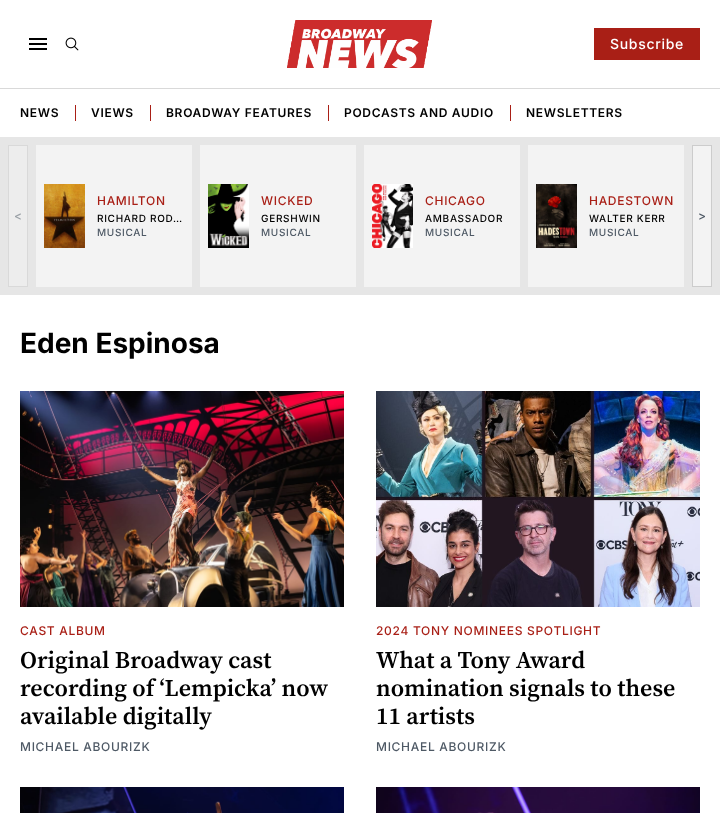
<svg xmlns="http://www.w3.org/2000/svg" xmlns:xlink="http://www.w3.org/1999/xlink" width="720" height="813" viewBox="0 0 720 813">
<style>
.cls-1{font:500 14px Inter;letter-spacing:0.7px;fill:#ffffff}
.cls-2{font:600 12px Inter;letter-spacing:0.7px;fill:#000000}
.cls-3{font:500 12px Inter;letter-spacing:0.7px;fill:#9aa0a6}
.cls-4{font:500 12px Inter;letter-spacing:0.7px;fill:#a91f16}
.cls-5{font:500 10px Inter;letter-spacing:0.7px;fill:#000000}
.cls-6{font:500 10px Inter;letter-spacing:0.7px;fill:#4e5965}
.cls-7{font:500 12px Inter;letter-spacing:0.7px;fill:#4e5965}
.cls-8{font:bold 28px Inter;fill:#000000}
.cls-9{font:600 24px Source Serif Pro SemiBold;fill:#000000}
</style>
<rect width="100%" height="100%" fill="#ffffff"/>
<rect fill="#d9d9d9" x="0" y="88" width="720" height="1"/>
<image xlink:href="image0.png" x="29" y="38" width="18" height="12"/>
<image xlink:href="image1.png" x="65" y="37" width="14" height="14"/>
<image xlink:href="image2.png" x="287" y="20" width="145" height="48"/>
<rect fill="#a91f16" x="594" y="28" width="106" height="32"/>
<rect fill="#a91f16" x="75" y="105" width="1" height="16"/>
<rect fill="#a91f16" x="150" y="105" width="1" height="16"/>
<rect fill="#a91f16" x="328" y="105" width="1" height="16"/>
<rect fill="#a91f16" x="510" y="105" width="1" height="16"/>
<rect fill="#e6e6e6" x="0" y="137" width="720" height="158"/>
<rect fill="#ededed" stroke="#d9d9d9" x="8.5" y="145.5" width="19" height="141"/>
<rect fill="#f3f3f3" x="36" y="145" width="156" height="142"/>
<image xlink:href="image3.png" x="44" y="184" width="41" height="64"/>
<rect fill="#f3f3f3" x="200" y="145" width="156" height="142"/>
<image xlink:href="image4.png" x="208" y="184" width="41" height="64"/>
<rect fill="#f3f3f3" x="364" y="145" width="156" height="142"/>
<image xlink:href="image5.png" x="372" y="184" width="41" height="64"/>
<rect fill="#f3f3f3" x="528" y="145" width="156" height="142"/>
<image xlink:href="image6.png" x="536" y="184" width="41" height="64"/>
<rect fill="#f3f3f3" stroke="#cccccc" x="692.5" y="145.5" width="19" height="141"/>
<image xlink:href="image7.png" x="20" y="391" width="324" height="216"/>
<image xlink:href="image8.png" x="376" y="391" width="324" height="216"/>
<image xlink:href="image9.png" x="20" y="787" width="324" height="26"/>
<image xlink:href="image10.png" x="376" y="787" width="324" height="26"/>
<text class="cls-1" x="610" y="49">Subscribe</text>
<text class="cls-2" x="20" y="117">NEWS</text>
<text class="cls-2" x="91" y="117">VIEWS</text>
<text class="cls-2" x="166" y="117">BROADWAY FEATURES</text>
<text class="cls-2" x="344" y="117">PODCASTS AND AUDIO</text>
<text class="cls-2" x="526" y="117">NEWSLETTERS</text>
<text class="cls-3" x="14" y="220">&lt;</text>
<text class="cls-4" x="97" y="205">HAMILTON</text>
<text class="cls-5" x="97" y="222">RICHARD ROD…</text>
<text class="cls-6" x="97" y="236">MUSICAL</text>
<text class="cls-4" x="261" y="205">WICKED</text>
<text class="cls-5" x="261" y="222">GERSHWIN</text>
<text class="cls-6" x="261" y="236">MUSICAL</text>
<text class="cls-4" x="425" y="205">CHICAGO</text>
<text class="cls-5" x="425" y="222">AMBASSADOR</text>
<text class="cls-6" x="425" y="236">MUSICAL</text>
<text class="cls-4" x="589" y="205">HADESTOWN</text>
<text class="cls-5" x="589" y="222">WALTER KERR</text>
<text class="cls-6" x="589" y="236">MUSICAL</text>
<text class="cls-7" x="698" y="220">&gt;</text>
<text class="cls-8" x="20" y="353">Eden Espinosa</text>
<text class="cls-4" x="20" y="635">CAST ALBUM</text>
<text class="cls-9"><tspan x="20" y="668">Original Broadway cast</tspan><tspan x="20" y="696">recording of ‘Lempicka’ now</tspan><tspan x="20" y="724">available digitally</tspan></text>
<text class="cls-7" x="20" y="751">MICHAEL ABOURIZK</text>
<text class="cls-4" x="376" y="635">2024 TONY NOMINEES SPOTLIGHT</text>
<text class="cls-9"><tspan x="376" y="668">What a Tony Award</tspan><tspan x="376" y="696">nomination signals to these</tspan><tspan x="376" y="724">11 artists</tspan></text>
<text class="cls-7" x="376" y="751">MICHAEL ABOURIZK</text>
</svg>
